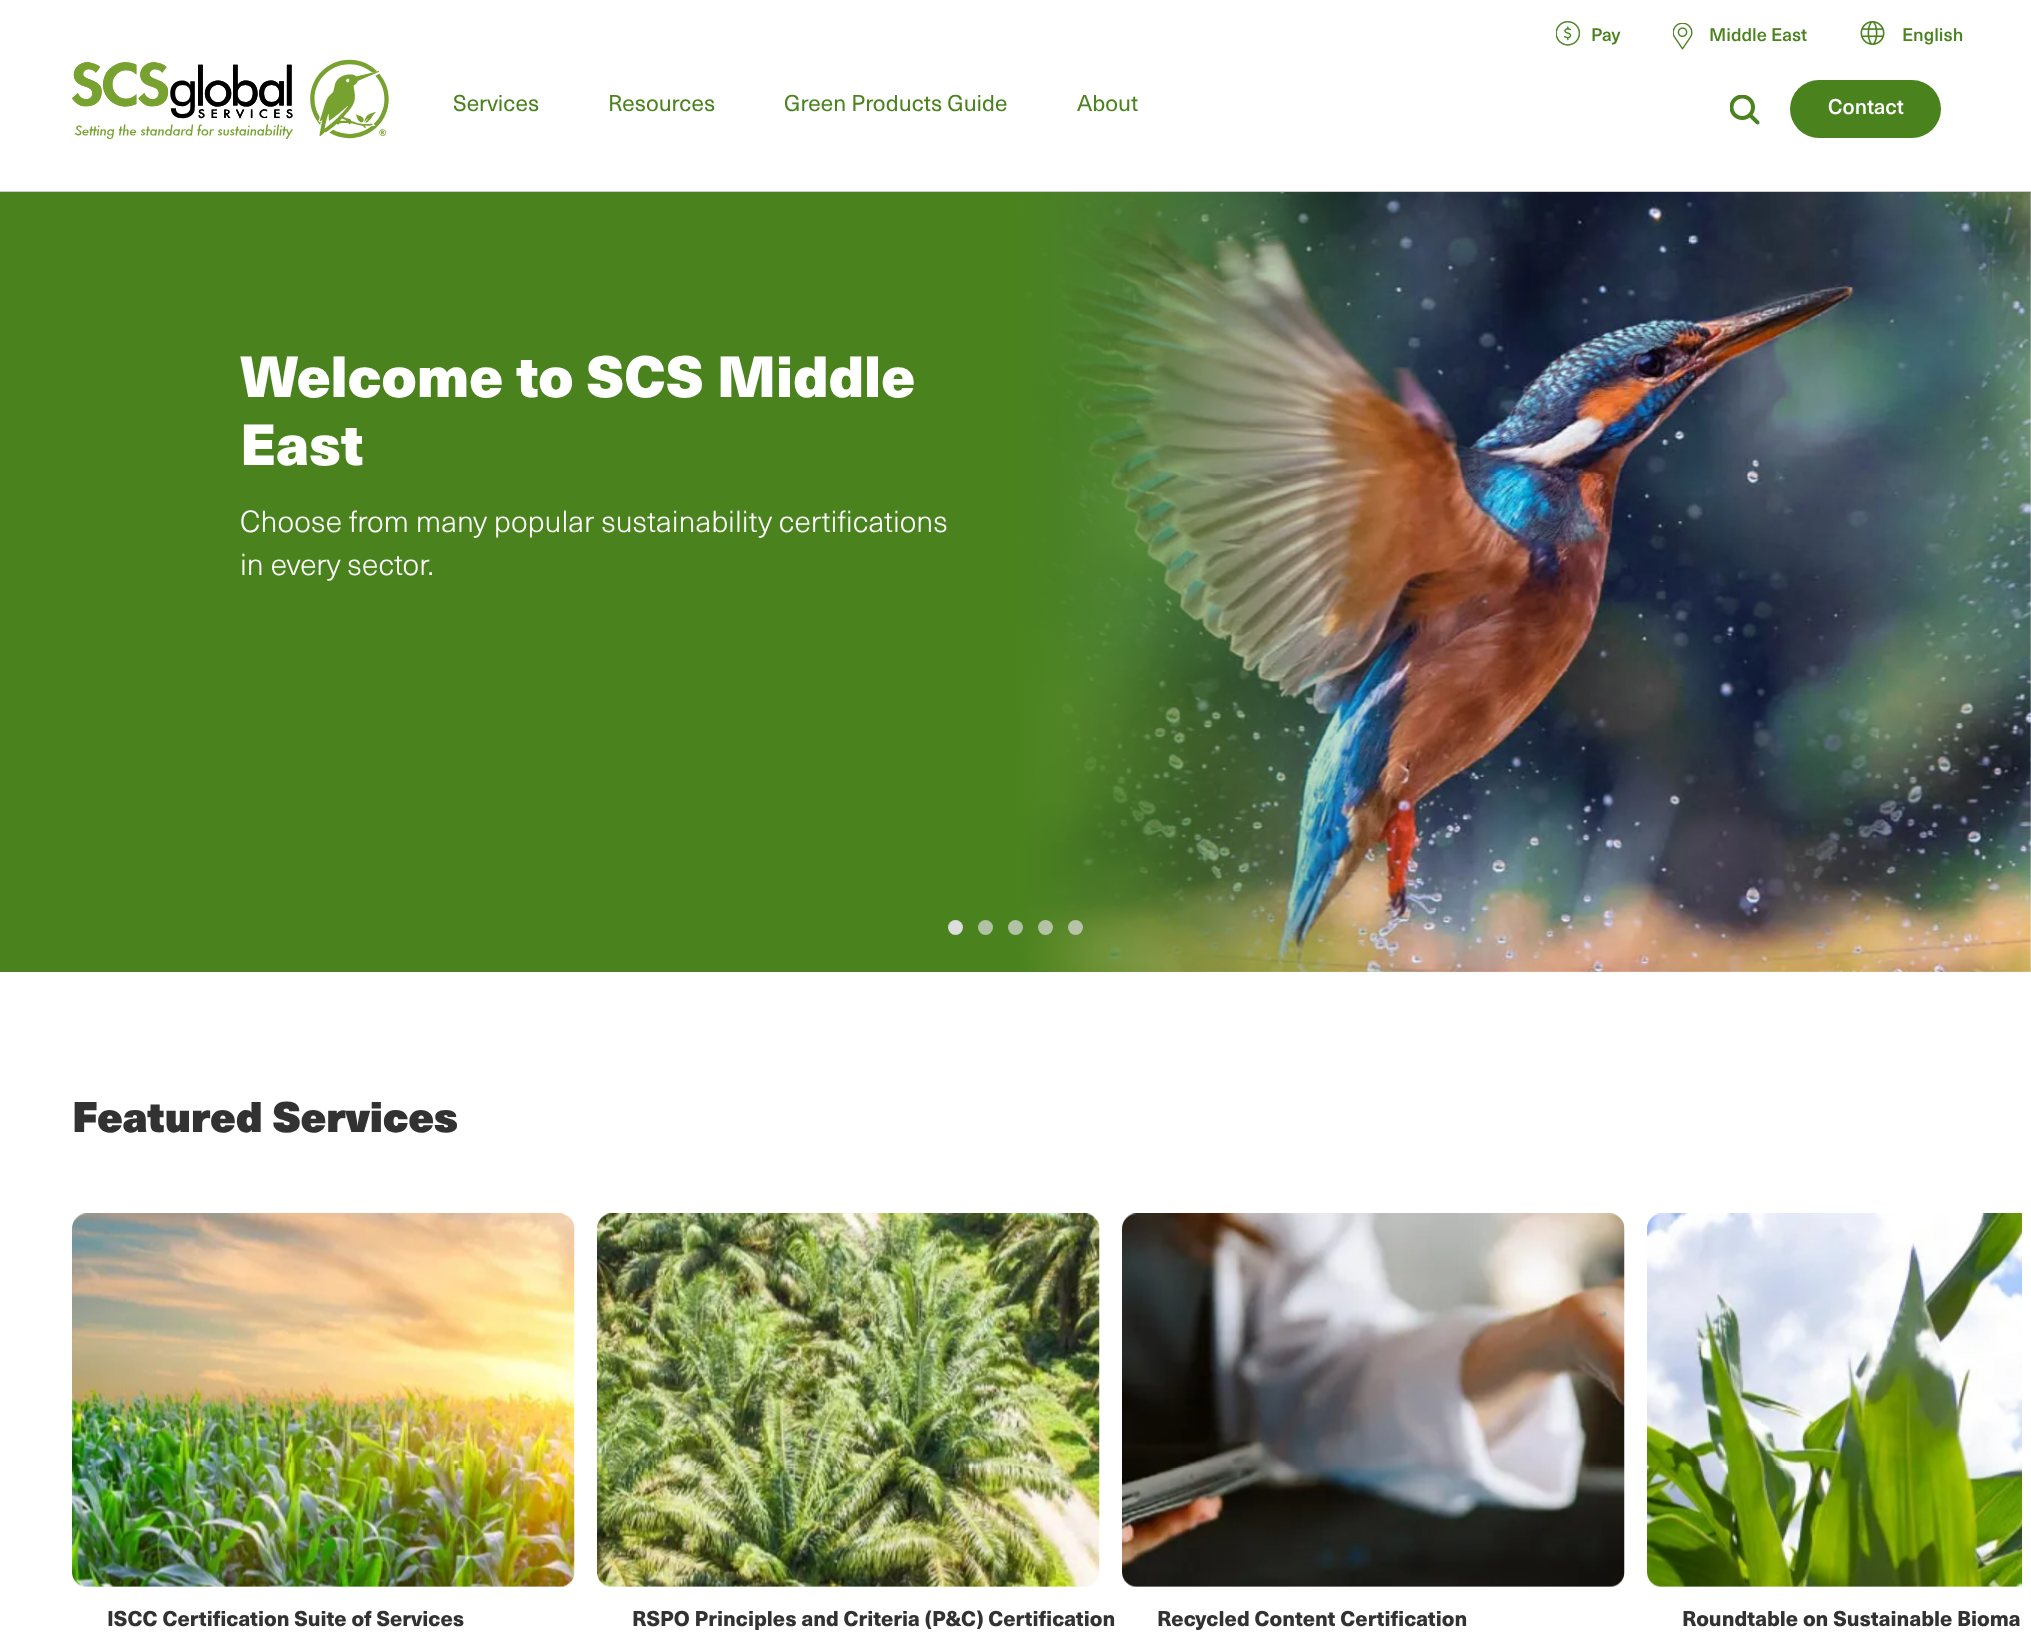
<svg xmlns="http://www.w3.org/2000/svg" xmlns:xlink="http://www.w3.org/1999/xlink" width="2031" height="1647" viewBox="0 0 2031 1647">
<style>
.cls-1{font:500 18px 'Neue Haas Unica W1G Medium';fill:#4a831e}
.cls-2{font:22.5px 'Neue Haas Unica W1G';fill:#4a831e}
.cls-3{font:500 21px 'Neue Haas Unica W1G Medium';fill:#ffffff}
.cls-4{font:900 57px 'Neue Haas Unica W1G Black';fill:#ffffff}
.cls-5{font:300 30px 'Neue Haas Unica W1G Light';fill:#ffffff}
.cls-6{font:900 42px 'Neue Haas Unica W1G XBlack';fill:#323232}
.cls-7{font:900 21px 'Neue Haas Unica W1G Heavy';fill:#323232}
</style>
<defs>
<linearGradient id="g1" gradientUnits="userSpaceOnUse" x1="0" y1="582" x2="2031" y2="582"><stop offset="0" stop-color="#4a831e"/><stop offset="0.5" stop-color="#4a831e"/><stop offset="0.7" stop-color="#4a831e" stop-opacity="0"/></linearGradient>
</defs>
<rect width="100%" height="100%" fill="#ffffff"/>
<rect fill="#cccccc" x="0" y="191" width="2031" height="2"/>
<image xlink:href="image0.png" x="1556" y="21" width="25" height="25"/>
<image xlink:href="image1.png" x="1673" y="23" width="20" height="27"/>
<image xlink:href="image2.png" x="1860" y="21" width="25" height="24"/>
<image xlink:href="image3.png" x="72" y="59" width="317" height="80"/>
<image xlink:href="image4.png" x="1730" y="95" width="30" height="30"/>
<rect fill="#4a831e" x="1790" y="80" width="151" height="58" rx="29"/>
<image xlink:href="image5.png" x="1018" y="192" width="1013" height="780"/>
<rect fill="url(#g1)" x="0" y="192" width="1413" height="780"/>
<circle fill="#dddddd" cx="955.5" cy="927.5" r="7.5"/>
<circle fill="#b1c2a4" cx="985.5" cy="927.5" r="7.5"/>
<circle fill="#b1c2a4" cx="1015.5" cy="927.5" r="7.5"/>
<circle fill="#dddddd" fill-opacity="0.7" cx="1045.5" cy="927.5" r="7.5"/>
<circle fill="#dddddd" fill-opacity="0.7" cx="1075.5" cy="927.5" r="7.5"/>
<image xlink:href="image6.png" x="72" y="1213" width="503" height="374"/>
<image xlink:href="image7.png" x="597" y="1213" width="503" height="374"/>
<image xlink:href="image8.png" x="1122" y="1213" width="503" height="374"/>
<image xlink:href="image9.png" x="1647" y="1213" width="375" height="374"/>
<text class="cls-1" x="1591" y="41">Pay</text>
<text class="cls-1" x="1709" y="41">Middle East</text>
<text class="cls-1" x="1902" y="41">English</text>
<text class="cls-2" x="453" y="111">Services</text>
<text class="cls-2" x="608" y="111">Resources</text>
<text class="cls-2" x="784" y="111">Green Products Guide</text>
<text class="cls-2" x="1077" y="111">About</text>
<text class="cls-3" x="1828" y="114">Contact</text>
<text class="cls-4"><tspan x="240" y="397">Welcome to SCS Middle</tspan><tspan x="240" y="465">East</tspan></text>
<text class="cls-5"><tspan x="240" y="532">Choose from many popular sustainability certifications</tspan><tspan x="240" y="575">in every sector.</tspan></text>
<text class="cls-6" x="72" y="1132">Featured Services</text>
<text class="cls-7" x="107" y="1626">ISCC Certification Suite of Services</text>
<text class="cls-7" x="632" y="1626">RSPO Principles and Criteria (P&amp;C) Certification</text>
<text class="cls-7" x="1157" y="1626">Recycled Content Certification</text>
<text class="cls-7" x="1682" y="1626">Roundtable on Sustainable Bioma</text>
</svg>
